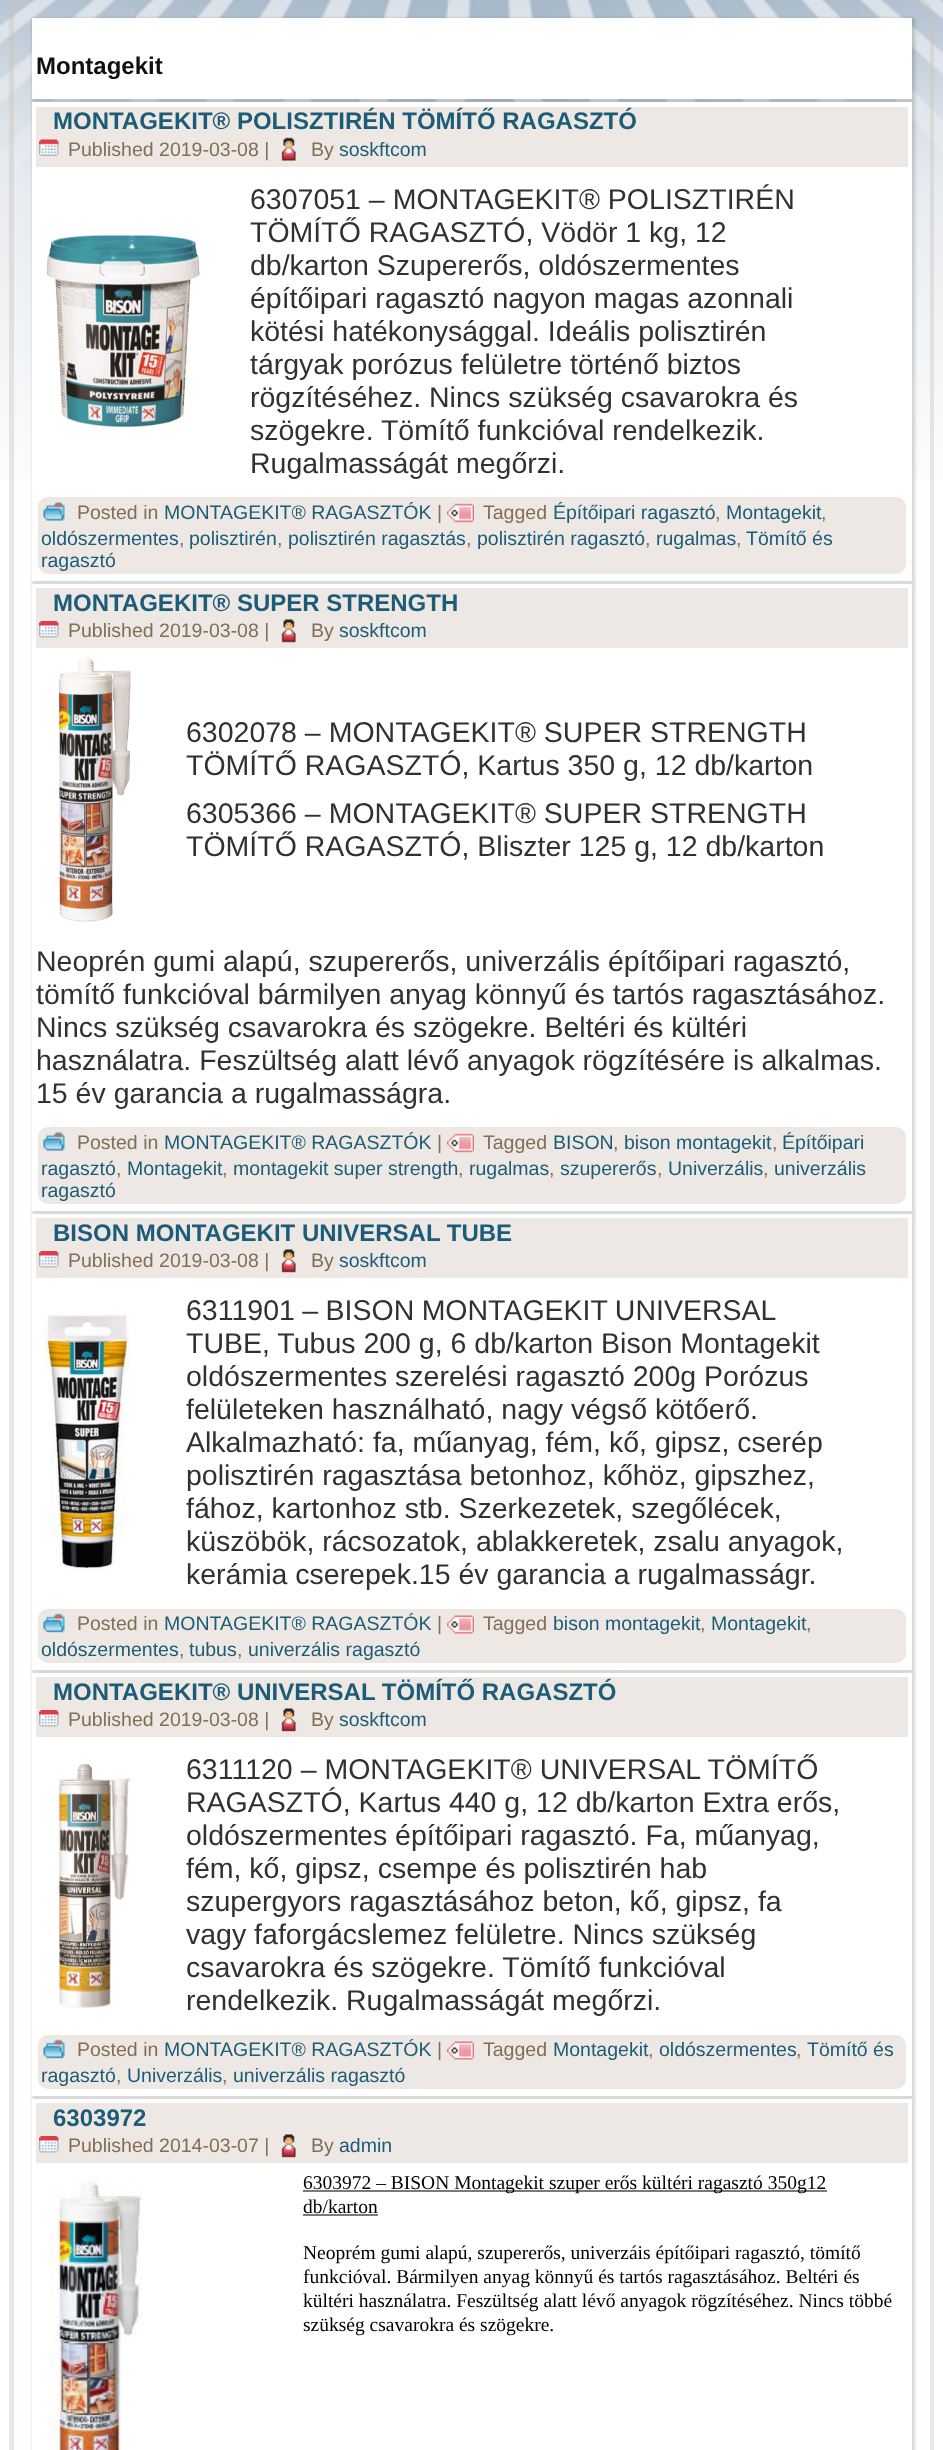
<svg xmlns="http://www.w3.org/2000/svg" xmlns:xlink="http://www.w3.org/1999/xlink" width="943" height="2450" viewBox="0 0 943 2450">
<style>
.cls-1{font:bold 24px Liberation Sans;fill:#13100c}
.cls-2{font:bold 24px Liberation Sans;fill:#1c5c78}
.cls-3{font:19.5px Liberation Sans;fill:#836d54}
.cls-4{font:19.5px Liberation Sans;fill:#1c5c78}
.cls-5{font:28.5px Liberation Sans;fill:#313131}
.cls-6{font:19.5px Liberation Serif;fill:#000000}
</style>
<rect width="100%" height="100%" fill="#ffffff"/>
<image xlink:href="image0.png" x="0" y="0" width="943" height="479"/>
<path fill="#cfc3b4" fill-opacity="0.4" fill-rule="evenodd" d="M32-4H912C924-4 934 6 934 18V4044H9V18C9 6 19-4 32-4ZM32 0H912C922 0 930 8 930 18V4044H14V18C14 8 22 0 32 0Z"/>
<rect fill="#000000" fill-opacity="0.15" filter="blur(1.5px)" x="32" y="18" width="883" height="84"/>
<rect fill="#ffffff" x="32" y="18" width="880" height="81"/>
<rect fill="#000000" fill-opacity="0.15" filter="blur(1.5px)" x="32" y="102" width="883" height="482"/>
<rect fill="#ffffff" x="32" y="102" width="880" height="479"/>
<rect fill="#ede8e3" x="36" y="107" width="872" height="60"/>
<image xlink:href="image1.png" x="39" y="139" width="20" height="17"/>
<image xlink:href="image2.png" x="281" y="137" width="15" height="24"/>
<image xlink:href="image3.png" x="46" y="235" width="154" height="193"/>
<rect fill="#ede8e3" stroke="#ffffff" stroke-width="2" x="37" y="496" width="870" height="79" rx="11"/>
<image xlink:href="image4.png" x="447" y="503" width="27" height="20"/>
<image xlink:href="image5.png" x="43" y="502" width="22" height="19"/>
<rect fill="#000000" fill-opacity="0.15" filter="blur(1.5px)" x="32" y="584" width="883" height="630"/>
<rect fill="#ffffff" x="32" y="584" width="880" height="627"/>
<rect fill="#ede8e3" x="36" y="588" width="872" height="60"/>
<image xlink:href="image6.png" x="39" y="621" width="20" height="17"/>
<image xlink:href="image7.png" x="281" y="619" width="15" height="24"/>
<image xlink:href="image8.png" x="59" y="657" width="72" height="265"/>
<rect fill="#ede8e3" stroke="#ffffff" stroke-width="2" x="37" y="1126" width="870" height="79" rx="11"/>
<image xlink:href="image4.png" x="447" y="1133" width="27" height="20"/>
<image xlink:href="image5.png" x="43" y="1132" width="22" height="19"/>
<rect fill="#000000" fill-opacity="0.15" filter="blur(1.5px)" x="32" y="1214" width="883" height="459"/>
<rect fill="#ffffff" x="32" y="1214" width="880" height="456"/>
<rect fill="#ede8e3" x="36" y="1218" width="872" height="60"/>
<image xlink:href="image6.png" x="39" y="1251" width="20" height="17"/>
<image xlink:href="image7.png" x="281" y="1249" width="15" height="24"/>
<image xlink:href="image9.png" x="44" y="1313" width="87" height="258"/>
<rect fill="#ede8e3" stroke="#ffffff" stroke-width="2" x="37" y="1608" width="870" height="56" rx="11"/>
<image xlink:href="image10.png" x="43" y="1613" width="22" height="20"/>
<image xlink:href="image11.png" x="447" y="1615" width="27" height="19"/>
<rect fill="#000000" fill-opacity="0.15" filter="blur(1.5px)" x="32" y="1673" width="883" height="426"/>
<rect fill="#ffffff" x="32" y="1673" width="880" height="423"/>
<rect fill="#ede8e3" x="36" y="1677" width="872" height="60"/>
<image xlink:href="image6.png" x="39" y="1710" width="20" height="17"/>
<image xlink:href="image7.png" x="281" y="1708" width="15" height="24"/>
<image xlink:href="image12.png" x="58" y="1764" width="73" height="244"/>
<rect fill="#ede8e3" stroke="#ffffff" stroke-width="2" x="37" y="2034" width="870" height="56" rx="11"/>
<image xlink:href="image10.png" x="43" y="2039" width="22" height="20"/>
<image xlink:href="image11.png" x="447" y="2041" width="27" height="19"/>
<rect fill="#000000" fill-opacity="0.15" filter="blur(1.5px)" x="32" y="2099" width="883" height="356"/>
<rect fill="#ffffff" x="32" y="2099" width="880" height="351"/>
<rect fill="#ede8e3" x="36" y="2103" width="872" height="60"/>
<image xlink:href="image6.png" x="39" y="2136" width="20" height="17"/>
<image xlink:href="image7.png" x="281" y="2134" width="15" height="24"/>
<image xlink:href="image13.png" x="49" y="2178" width="94" height="272"/>
<rect fill="#7a7a75" x="303" y="2190" width="524" height="2"/>
<rect fill="#7a7a75" x="303" y="2214" width="75" height="2"/>
<text class="cls-1" x="36" y="74">Montagekit</text>
<text class="cls-2" x="53" y="129">MONTAGEKIT® POLISZTIRÉN TÖMÍTŐ RAGASZTÓ</text>
<text class="cls-3" x="68" y="156">Published 2019-03-08 |</text>
<text class="cls-3" x="311" y="156">By</text>
<text class="cls-4" x="339" y="156">soskftcom</text>
<text class="cls-5"><tspan x="250" y="209">6307051 – MONTAGEKIT® POLISZTIRÉN</tspan><tspan x="250" y="242">TÖMÍTŐ RAGASZTÓ, Vödör 1 kg, 12</tspan><tspan x="250" y="275">db/karton Szupererős, oldószermentes</tspan><tspan x="250" y="308">építőipari ragasztó nagyon magas azonnali</tspan><tspan x="250" y="341">kötési hatékonysággal. Ideális polisztirén</tspan><tspan x="250" y="374">tárgyak porózus felületre történő biztos</tspan><tspan x="250" y="407">rögzítéséhez. Nincs szükség csavarokra és</tspan><tspan x="250" y="440">szögekre. Tömítő funkcióval rendelkezik.</tspan><tspan x="250" y="473">Rugalmasságát megőrzi.</tspan></text>
<text class="cls-3" x="483" y="519">Tagged</text>
<text class="cls-4" x="553" y="519">Építőipari ragasztó</text>
<text class="cls-3" x="715" y="519">,</text>
<text class="cls-4" x="726" y="519">Montagekit</text>
<text class="cls-3" x="821" y="519">,</text>
<text class="cls-4" x="41" y="545">oldószermentes</text>
<text class="cls-3" x="179" y="545">,</text>
<text class="cls-4" x="189" y="545">polisztirén</text>
<text class="cls-3" x="277" y="545">,</text>
<text class="cls-4" x="288" y="545">polisztirén ragasztás</text>
<text class="cls-3" x="466" y="545">,</text>
<text class="cls-4" x="477" y="545">polisztirén ragasztó</text>
<text class="cls-3" x="645" y="545">,</text>
<text class="cls-4" x="656" y="545">rugalmas</text>
<text class="cls-3" x="736" y="545">,</text>
<text class="cls-4" x="746" y="545">Tömítő és</text>
<text class="cls-4" x="41" y="567">ragasztó</text>
<text class="cls-3" x="77" y="519">Posted in</text>
<text class="cls-4" x="164" y="519">MONTAGEKIT® RAGASZTÓK</text>
<text class="cls-3" x="437" y="519">|</text>
<text class="cls-2" x="53" y="611">MONTAGEKIT® SUPER STRENGTH</text>
<text class="cls-3" x="68" y="637">Published 2019-03-08 |</text>
<text class="cls-3" x="311" y="637">By</text>
<text class="cls-4" x="339" y="637">soskftcom</text>
<text class="cls-5"><tspan x="186" y="742">6302078 – MONTAGEKIT® SUPER STRENGTH</tspan><tspan x="186" y="775">TÖMÍTŐ RAGASZTÓ, Kartus 350 g, 12 db/karton</tspan><tspan x="186" y="823">6305366 – MONTAGEKIT® SUPER STRENGTH</tspan><tspan x="186" y="856">TÖMÍTŐ RAGASZTÓ, Bliszter 125 g, 12 db/karton</tspan></text>
<text class="cls-5"><tspan x="36" y="971">Neoprén gumi alapú, szupererős, univerzális építőipari ragasztó,</tspan><tspan x="36" y="1004">tömítő funkcióval bármilyen anyag könnyű és tartós ragasztásához.</tspan><tspan x="36" y="1037">Nincs szükség csavarokra és szögekre. Beltéri és kültéri</tspan><tspan x="36" y="1070">használatra. Feszültség alatt lévő anyagok rögzítésére is alkalmas.</tspan><tspan x="36" y="1103">15 év garancia a rugalmasságra.</tspan></text>
<text class="cls-3" x="483" y="1149">Tagged</text>
<text class="cls-4" x="553" y="1149">BISON</text>
<text class="cls-3" x="613" y="1149">,</text>
<text class="cls-4" x="624" y="1149">bison montagekit</text>
<text class="cls-3" x="772" y="1149">,</text>
<text class="cls-4" x="782" y="1149">Építőipari</text>
<text class="cls-4" x="41" y="1175">ragasztó</text>
<text class="cls-3" x="116" y="1175">,</text>
<text class="cls-4" x="127" y="1175">Montagekit</text>
<text class="cls-3" x="222" y="1175">,</text>
<text class="cls-4" x="233" y="1175">montagekit super strength</text>
<text class="cls-3" x="458" y="1175">,</text>
<text class="cls-4" x="469" y="1175">rugalmas</text>
<text class="cls-3" x="549" y="1175">,</text>
<text class="cls-4" x="560" y="1175">szupererős</text>
<text class="cls-3" x="657" y="1175">,</text>
<text class="cls-4" x="668" y="1175">Univerzális</text>
<text class="cls-3" x="763" y="1175">,</text>
<text class="cls-4" x="774" y="1175">univerzális</text>
<text class="cls-4" x="41" y="1197">ragasztó</text>
<text class="cls-3" x="77" y="1149">Posted in</text>
<text class="cls-4" x="164" y="1149">MONTAGEKIT® RAGASZTÓK</text>
<text class="cls-3" x="437" y="1149">|</text>
<text class="cls-2" x="53" y="1241">BISON MONTAGEKIT UNIVERSAL TUBE</text>
<text class="cls-3" x="68" y="1267">Published 2019-03-08 |</text>
<text class="cls-3" x="311" y="1267">By</text>
<text class="cls-4" x="339" y="1267">soskftcom</text>
<text class="cls-5"><tspan x="186" y="1320" word-spacing="-0.5">6311901 – BISON MONTAGEKIT UNIVERSAL</tspan><tspan x="186" y="1353">TUBE, Tubus 200 g, 6 db/karton Bison Montagekit</tspan><tspan x="186" y="1386">oldószermentes szerelési ragasztó 200g Porózus</tspan><tspan x="186" y="1419">felületeken használható, nagy végső kötőerő.</tspan><tspan x="186" y="1452">Alkalmazható: fa, műanyag, fém, kő, gipsz, cserép</tspan><tspan x="186" y="1485">polisztirén ragasztása betonhoz, kőhöz, gipszhez,</tspan><tspan x="186" y="1518">fához, kartonhoz stb. Szerkezetek, szegőlécek,</tspan><tspan x="186" y="1551">küszöbök, rácsozatok, ablakkeretek, zsalu anyagok,</tspan><tspan x="186" y="1584">kerámia cserepek.15 év garancia a rugalmasságr.</tspan></text>
<text class="cls-3" x="77" y="1630">Posted in</text>
<text class="cls-4" x="164" y="1630">MONTAGEKIT® RAGASZTÓK</text>
<text class="cls-3" x="483" y="1630">Tagged</text>
<text class="cls-4" x="553" y="1630">bison montagekit</text>
<text class="cls-3" x="700" y="1630">,</text>
<text class="cls-4" x="711" y="1630">Montagekit</text>
<text class="cls-3" x="806" y="1630">,</text>
<text class="cls-4" x="41" y="1656">oldószermentes</text>
<text class="cls-3" x="179" y="1656">,</text>
<text class="cls-4" x="189" y="1656">tubus</text>
<text class="cls-3" x="237" y="1656">,</text>
<text class="cls-4" x="248" y="1656">univerzális ragasztó</text>
<text class="cls-3" x="437" y="1630">|</text>
<text class="cls-2" x="53" y="1700">MONTAGEKIT® UNIVERSAL TÖMÍTŐ RAGASZTÓ</text>
<text class="cls-3" x="68" y="1726">Published 2019-03-08 |</text>
<text class="cls-3" x="311" y="1726">By</text>
<text class="cls-4" x="339" y="1726">soskftcom</text>
<text class="cls-5"><tspan x="186" y="1779">6311120 – MONTAGEKIT® UNIVERSAL TÖMÍTŐ</tspan><tspan x="186" y="1812">RAGASZTÓ, Kartus 440 g, 12 db/karton Extra erős,</tspan><tspan x="186" y="1845">oldószermentes építőipari ragasztó. Fa, műanyag,</tspan><tspan x="186" y="1878">fém, kő, gipsz, csempe és polisztirén hab</tspan><tspan x="186" y="1911">szupergyors ragasztásához beton, kő, gipsz, fa</tspan><tspan x="186" y="1944">vagy faforgácslemez felületre. Nincs szükség</tspan><tspan x="186" y="1977">csavarokra és szögekre. Tömítő funkcióval</tspan><tspan x="186" y="2010">rendelkezik. Rugalmasságát megőrzi.</tspan></text>
<text class="cls-3" x="77" y="2056">Posted in</text>
<text class="cls-4" x="164" y="2056">MONTAGEKIT® RAGASZTÓK</text>
<text class="cls-3" x="483" y="2056">Tagged</text>
<text class="cls-4" x="553" y="2056">Montagekit</text>
<text class="cls-3" x="648" y="2056">,</text>
<text class="cls-4" x="659" y="2056">oldószermentes</text>
<text class="cls-3" x="796" y="2056">,</text>
<text class="cls-4" x="807" y="2056">Tömítő és</text>
<text class="cls-4" x="41" y="2082">ragasztó</text>
<text class="cls-3" x="116" y="2082">,</text>
<text class="cls-4" x="127" y="2082">Univerzális</text>
<text class="cls-3" x="222" y="2082">,</text>
<text class="cls-4" x="233" y="2082">univerzális ragasztó</text>
<text class="cls-3" x="437" y="2056">|</text>
<text class="cls-2" x="53" y="2126">6303972</text>
<text class="cls-3" x="68" y="2152">Published 2014-03-07 |</text>
<text class="cls-3" x="311" y="2152">By</text>
<text class="cls-4" x="339" y="2152">admin</text>
<text class="cls-6"><tspan x="303" y="2189">6303972 – BISON Montagekit szuper erős kültéri ragasztó 350g12</tspan><tspan x="303" y="2213">db/karton</tspan></text>
<text class="cls-6"><tspan x="303" y="2259">Neoprém gumi alapú, szupererős, univerzáis építőipari ragasztó, tömítő</tspan><tspan x="303" y="2283">funkcióval. Bármilyen anyag könnyű és tartós ragasztásához. Beltéri és</tspan><tspan x="303" y="2307">kültéri használatra. Feszültség alatt lévő anyagok rögzítéséhez. Nincs többé</tspan><tspan x="303" y="2331">szükség csavarokra és szögekre.</tspan></text>
</svg>
